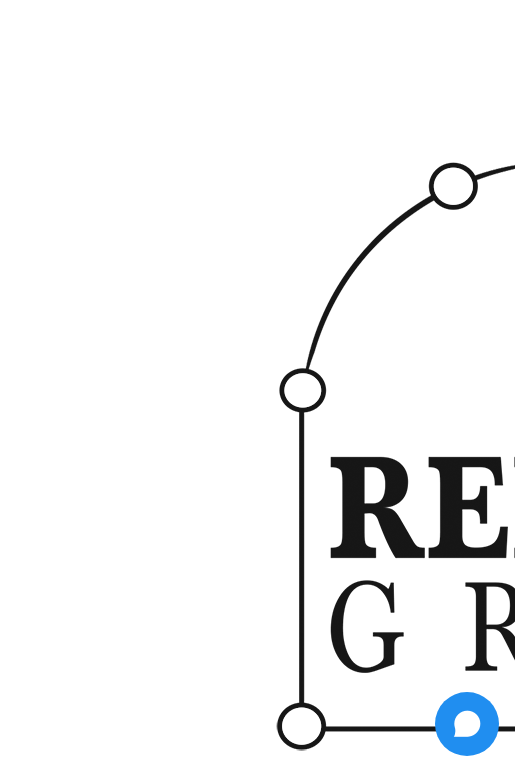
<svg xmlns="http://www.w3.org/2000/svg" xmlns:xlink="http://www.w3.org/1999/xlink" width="515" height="772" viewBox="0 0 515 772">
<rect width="100%" height="100%" fill="#ffffff"/>
<image xlink:href="image0.png" x="276" y="162" width="239" height="589"/>
<circle fill="#208ef0" cx="467" cy="724" r="32"/>
<image xlink:href="image1.png" x="453" y="710" width="28" height="27"/>
</svg>
